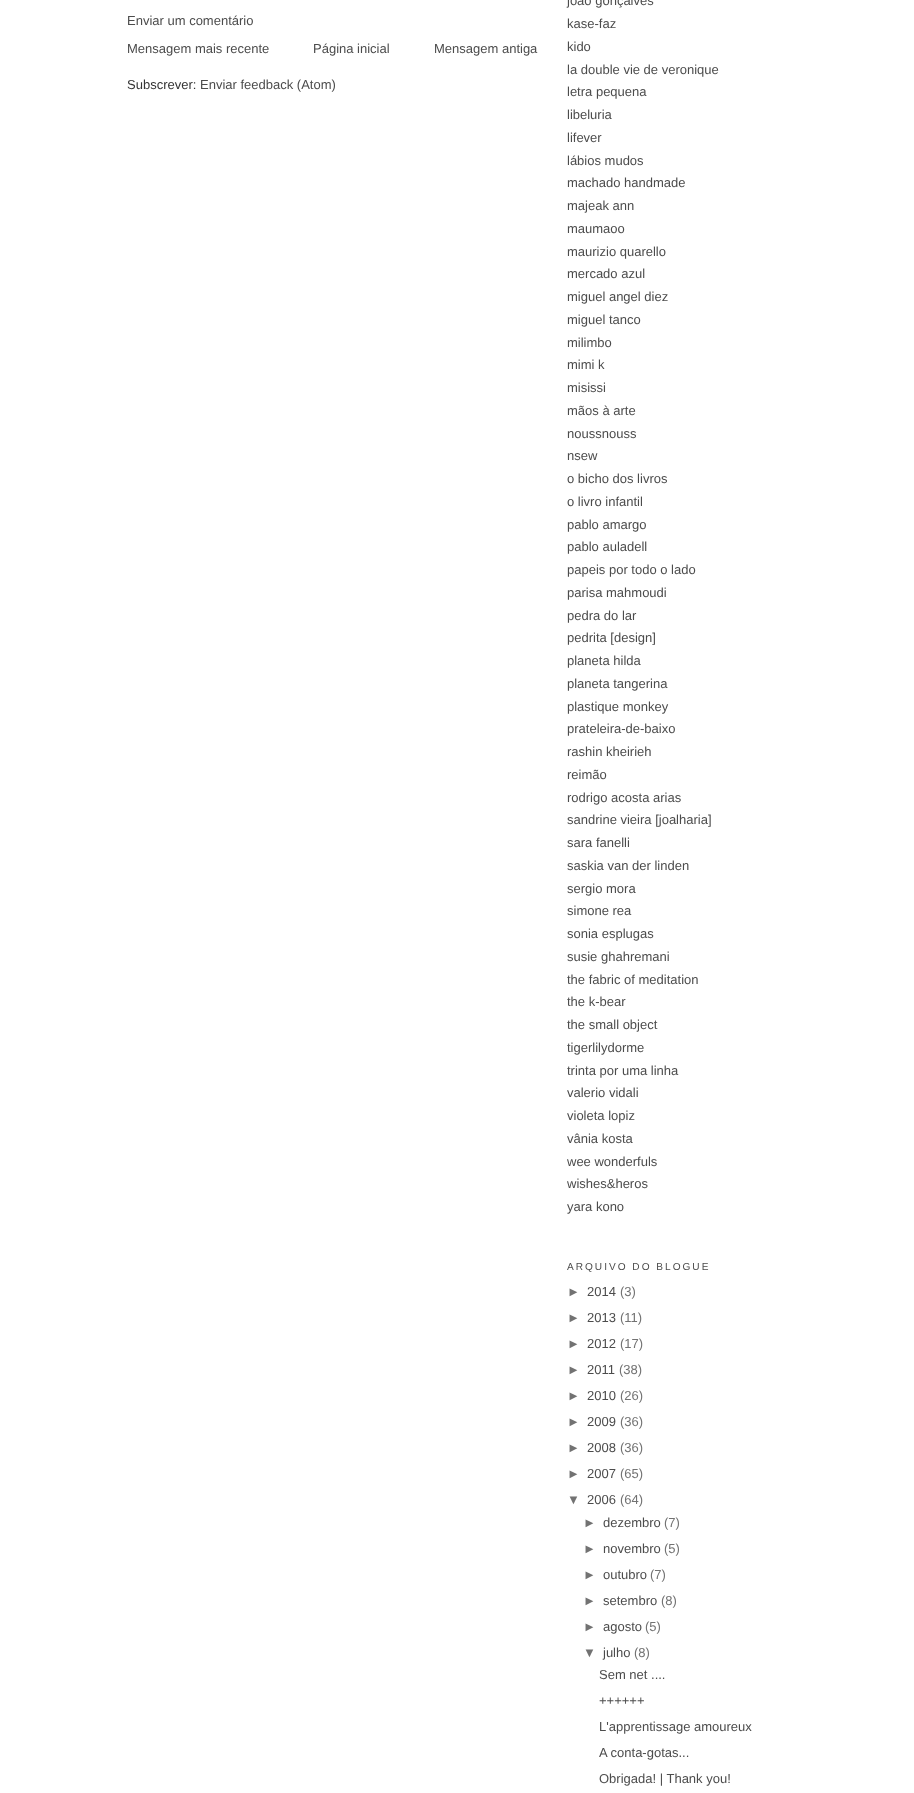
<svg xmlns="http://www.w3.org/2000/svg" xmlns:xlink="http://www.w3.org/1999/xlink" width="914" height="1793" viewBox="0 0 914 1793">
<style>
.cls-1{font:13px Liberation Sans;fill:#4c4c4c}
.cls-2{font:13px Liberation Sans;fill:#333333}
.cls-3{font:10.1px Liberation Sans;letter-spacing:2px;fill:#4c4c4c}
.cls-4{font:13px Liberation Sans;fill:#727272}
</style>
<rect width="100%" height="100%" fill="#ffffff"/>
<text class="cls-1" x="127" y="25">Enviar um comentário</text>
<text class="cls-1" x="127" y="53">Mensagem mais recente</text>
<text class="cls-1" x="313" y="53">Página inicial</text>
<text class="cls-1" x="434" y="53">Mensagem antiga</text>
<text class="cls-2" x="127" y="89">Subscrever:</text>
<text class="cls-1" x="200" y="89">Enviar feedback (Atom)</text>
<text class="cls-1"><tspan x="567" y="5">joão gonçalves</tspan><tspan x="567" y="28">kase-faz</tspan><tspan x="567" y="51">kido</tspan><tspan x="567" y="74">la double vie de veronique</tspan><tspan x="567" y="96">letra pequena</tspan><tspan x="567" y="119">libeluria</tspan><tspan x="567" y="142">lifever</tspan><tspan x="567" y="165">lábios mudos</tspan><tspan x="567" y="187">machado handmade</tspan><tspan x="567" y="210">majeak ann</tspan><tspan x="567" y="233">maumaoo</tspan><tspan x="567" y="256">maurizio quarello</tspan><tspan x="567" y="278">mercado azul</tspan><tspan x="567" y="301">miguel angel diez</tspan><tspan x="567" y="324">miguel tanco</tspan><tspan x="567" y="347">milimbo</tspan><tspan x="567" y="369">mimi k</tspan><tspan x="567" y="392">misissi</tspan><tspan x="567" y="415">mãos à arte</tspan><tspan x="567" y="438">noussnouss</tspan><tspan x="567" y="460">nsew</tspan><tspan x="567" y="483">o bicho dos livros</tspan><tspan x="567" y="506">o livro infantil</tspan><tspan x="567" y="529">pablo amargo</tspan><tspan x="567" y="551">pablo auladell</tspan><tspan x="567" y="574">papeis por todo o lado</tspan><tspan x="567" y="597">parisa mahmoudi</tspan><tspan x="567" y="620">pedra do lar</tspan><tspan x="567" y="642">pedrita [design]</tspan><tspan x="567" y="665">planeta hilda</tspan><tspan x="567" y="688">planeta tangerina</tspan><tspan x="567" y="711">plastique monkey</tspan><tspan x="567" y="733">prateleira-de-baixo</tspan><tspan x="567" y="756">rashin kheirieh</tspan><tspan x="567" y="779">reimão</tspan><tspan x="567" y="802">rodrigo acosta arias</tspan><tspan x="567" y="824">sandrine vieira [joalharia]</tspan><tspan x="567" y="847">sara fanelli</tspan><tspan x="567" y="870">saskia van der linden</tspan><tspan x="567" y="893">sergio mora</tspan><tspan x="567" y="915">simone rea</tspan><tspan x="567" y="938">sonia esplugas</tspan><tspan x="567" y="961">susie ghahremani</tspan><tspan x="567" y="984">the fabric of meditation</tspan><tspan x="567" y="1006">the k-bear</tspan><tspan x="567" y="1029">the small object</tspan><tspan x="567" y="1052">tigerlilydorme</tspan><tspan x="567" y="1075">trinta por uma linha</tspan><tspan x="567" y="1097">valerio vidali</tspan><tspan x="567" y="1120">violeta lopiz</tspan><tspan x="567" y="1143">vânia kosta</tspan><tspan x="567" y="1166">wee wonderfuls</tspan><tspan x="567" y="1188">wishes&amp;heros</tspan><tspan x="567" y="1211">yara kono</tspan></text>
<text class="cls-3" x="567" y="1270">ARQUIVO DO BLOGUE</text>
<text class="cls-4" x="567" y="1296">►</text>
<text class="cls-1" x="587" y="1296">2014</text>
<text class="cls-4" x="620" y="1296">(3)</text>
<text class="cls-4" x="567" y="1322">►</text>
<text class="cls-1" x="587" y="1322">2013</text>
<text class="cls-4" x="620" y="1322">(11)</text>
<text class="cls-4" x="567" y="1348">►</text>
<text class="cls-1" x="587" y="1348">2012</text>
<text class="cls-4" x="620" y="1348">(17)</text>
<text class="cls-4" x="567" y="1374">►</text>
<text class="cls-1" x="587" y="1374">2011</text>
<text class="cls-4" x="619" y="1374">(38)</text>
<text class="cls-4" x="567" y="1400">►</text>
<text class="cls-1" x="587" y="1400">2010</text>
<text class="cls-4" x="620" y="1400">(26)</text>
<text class="cls-4" x="567" y="1426">►</text>
<text class="cls-1" x="587" y="1426">2009</text>
<text class="cls-4" x="620" y="1426">(36)</text>
<text class="cls-4" x="567" y="1452">►</text>
<text class="cls-1" x="587" y="1452">2008</text>
<text class="cls-4" x="620" y="1452">(36)</text>
<text class="cls-4" x="567" y="1478">►</text>
<text class="cls-1" x="587" y="1478">2007</text>
<text class="cls-4" x="620" y="1478">(65)</text>
<text class="cls-4" x="567" y="1504">▼</text>
<text class="cls-1" x="587" y="1504">2006</text>
<text class="cls-4" x="620" y="1504">(64)</text>
<text class="cls-4" x="583" y="1527">►</text>
<text class="cls-1" x="603" y="1527">dezembro</text>
<text class="cls-4" x="664" y="1527">(7)</text>
<text class="cls-4" x="583" y="1553">►</text>
<text class="cls-1" x="603" y="1553">novembro</text>
<text class="cls-4" x="664" y="1553">(5)</text>
<text class="cls-4" x="583" y="1579">►</text>
<text class="cls-1" x="603" y="1579">outubro</text>
<text class="cls-4" x="650" y="1579">(7)</text>
<text class="cls-4" x="583" y="1605">►</text>
<text class="cls-1" x="603" y="1605">setembro</text>
<text class="cls-4" x="661" y="1605">(8)</text>
<text class="cls-4" x="583" y="1631">►</text>
<text class="cls-1" x="603" y="1631">agosto</text>
<text class="cls-4" x="645" y="1631">(5)</text>
<text class="cls-4" x="583" y="1657">▼</text>
<text class="cls-1" x="603" y="1657">julho</text>
<text class="cls-4" x="634" y="1657">(8)</text>
<text class="cls-1" x="599" y="1679">Sem net ....</text>
<text class="cls-1" x="599" y="1705">++++++</text>
<text class="cls-1" x="599" y="1731">L'apprentissage amoureux</text>
<text class="cls-1" x="599" y="1757">A conta-gotas...</text>
<text class="cls-1" x="599" y="1783">Obrigada! | Thank you!</text>
</svg>
